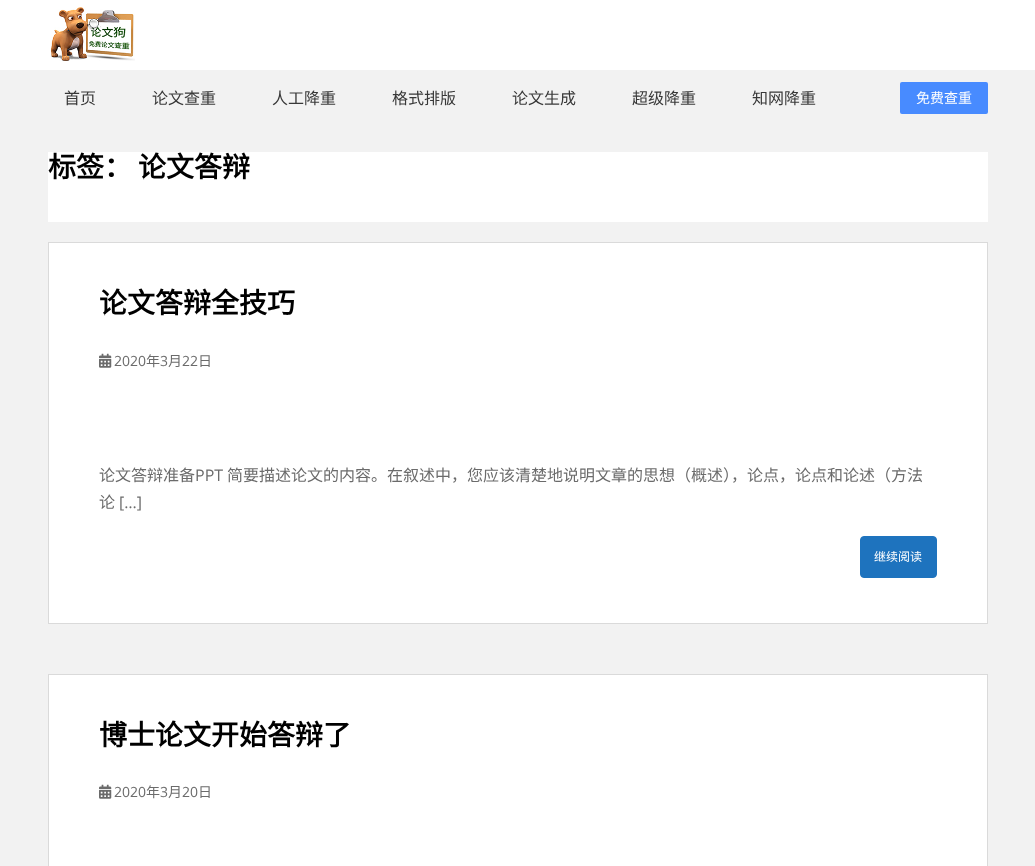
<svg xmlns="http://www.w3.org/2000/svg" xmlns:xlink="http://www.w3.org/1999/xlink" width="1035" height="866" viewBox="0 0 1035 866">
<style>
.cls-1{font:16px Noto Sans CJK SC;fill:#383838}
.cls-2{font:14px Noto Sans CJK SC;fill:#ffffff}
.cls-3{font:bold 28px Noto Sans CJK SC;fill:#000000}
.cls-4{font:14px Open Sans;fill:#6b6b6b}
.cls-5{font:14px Noto Sans CJK SC;fill:#6b6b6b}
.cls-6{font:16px Noto Sans CJK SC;fill:#6b6b6b}
.cls-7{font:16px Open Sans;fill:#6b6b6b}
.cls-8{font:12px Noto Sans CJK SC;fill:#ffffff}
</style>
<rect width="100%" height="100%" fill="#f2f2f2"/>
<rect fill="#ffffff" x="0" y="0" width="1035" height="70"/>
<image xlink:href="image0.png" x="50" y="7" width="85" height="54"/>
<rect fill="#488bff" x="900" y="82" width="88" height="32" rx="2"/>
<rect fill="#ffffff" x="48" y="152" width="940" height="70"/>
<rect fill="#ffffff" stroke="#dadada" x="48.5" y="242.5" width="939" height="381"/>
<image xlink:href="image1.png" x="99" y="353" width="13" height="15"/>
<rect fill="#1e73be" stroke="#1e73be" x="860.5" y="536.5" width="76" height="41" rx="3.5"/>
<rect fill="#ffffff" stroke="#dadada" x="48.5" y="674.5" width="939" height="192"/>
<image xlink:href="image1.png" x="99" y="784" width="13" height="15"/>
<text class="cls-1" x="64" y="104">首页</text>
<text class="cls-1" x="152" y="104">论文查重</text>
<text class="cls-1" x="272" y="104">人工降重</text>
<text class="cls-1" x="392" y="104">格式排版</text>
<text class="cls-1" x="512" y="104">论文生成</text>
<text class="cls-1" x="632" y="104">超级降重</text>
<text class="cls-1" x="752" y="104">知网降重</text>
<text class="cls-2" x="916" y="103">免费查重</text>
<text class="cls-3" x="48" y="177">标签：</text>
<text class="cls-3" x="138" y="177">论文答辩</text>
<text class="cls-3" x="99" y="313">论文答辩全技巧</text>
<text class="cls-4" x="114" y="366">2020</text>
<text class="cls-5" x="146" y="366">年</text>
<text class="cls-4" x="160" y="366">3</text>
<text class="cls-5" x="168" y="366">月</text>
<text class="cls-4" x="182" y="366">22</text>
<text class="cls-5" x="198" y="366">日</text>
<text class="cls-6" x="99" y="481">论文答辩准备</text>
<text class="cls-7" x="195" y="481">PPT</text>
<text class="cls-6" x="227" y="481">简要描述论文的内容。在叙述中，您应该清楚地说明文章的思想（概述），论点，论点和论述（方法</text>
<text class="cls-6" x="99" y="508">论</text>
<text class="cls-7" x="119" y="508">[…]</text>
<text class="cls-8" x="874" y="561">继续阅读</text>
<text class="cls-3" x="99" y="745">博士论文开始答辩了</text>
<text class="cls-4" x="114" y="797">2020</text>
<text class="cls-5" x="146" y="797">年</text>
<text class="cls-4" x="160" y="797">3</text>
<text class="cls-5" x="168" y="797">月</text>
<text class="cls-4" x="182" y="797">20</text>
<text class="cls-5" x="198" y="797">日</text>
</svg>
